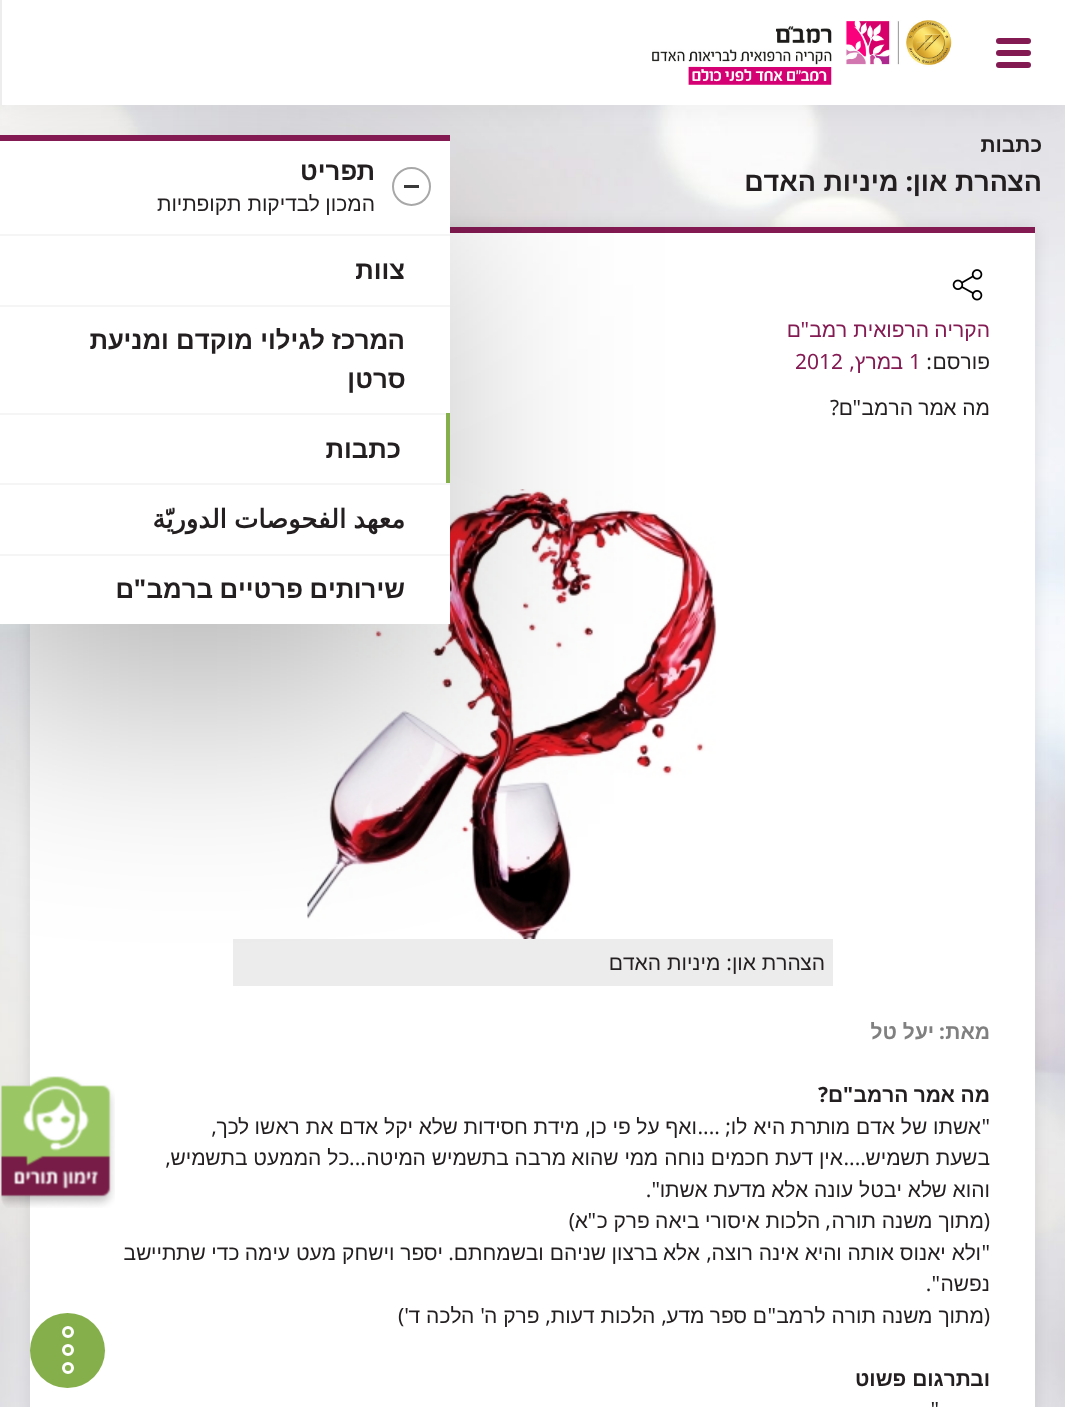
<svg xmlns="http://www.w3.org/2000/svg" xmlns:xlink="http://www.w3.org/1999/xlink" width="1065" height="1407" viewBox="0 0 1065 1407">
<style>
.cls-1{font:bold 21px Noto Sans Hebrew;direction:rtl;fill:#231f20}
.cls-2{font:bold 27px Noto Sans Hebrew;direction:rtl;fill:#231f20}
.cls-3{font:bold 27px Noto Sans;direction:rtl;fill:#231f20}
.cls-4{font:21px Noto Sans Hebrew;direction:rtl;fill:#831a52}
.cls-5{font:21px Noto Sans;direction:rtl;fill:#831a52}
.cls-6{font:21px Noto Sans Hebrew;direction:rtl;fill:#231f20}
.cls-7{font:21px Noto Sans;direction:rtl;fill:#231f20}
.cls-8{font:21px Noto Sans;fill:#831a52}
.cls-9{font:bold 21px Noto Sans Hebrew;direction:rtl;fill:#808080}
.cls-10{font:bold 21px Noto Sans;direction:rtl;fill:#808080}
.cls-11{font:bold 21px Noto Sans;direction:rtl;fill:#231f20}
.cls-12{font:bold 25.8px Noto Sans Hebrew;direction:rtl;fill:#231f20}
.cls-13{font:bold 25.8px DejaVu Sans;direction:rtl;fill:#231f20}
.cls-14{font:bold 25.8px Noto Sans;direction:rtl;fill:#231f20}
</style>
<rect width="100%" height="100%" fill="#ffffff"/>
<image xlink:href="image0.png" x="0" y="105" width="1065" height="1302"/>
<rect fill="#000000" fill-opacity="0.1" filter="blur(7.5px)" x="30" y="227" width="1005" height="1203"/>
<rect fill="#ffffff" x="30" y="233" width="1005" height="1174"/>
<rect fill="#831a52" x="450" y="227" width="585" height="6"/>
<image xlink:href="image3.png" x="307" y="489" width="410" height="450"/>
<rect fill="#ececec" x="233" y="939" width="600" height="47"/>
<rect fill="#000000" fill-opacity="0.3" filter="blur(112.5px)" x="-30" y="210" width="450" height="489"/>
<rect fill="#831a52" x="0" y="135" width="450" height="6"/>
<rect fill="#ffffff" x="0" y="141" width="450" height="93"/>
<rect fill="#000000" fill-opacity="0.06" filter="blur(15px)" x="0" y="2" width="1065" height="105"/>
<rect fill="#ffffff" x="2" y="0" width="1063" height="105"/>
<rect fill="#831a52" x="996" y="38" width="35" height="6" rx="3"/>
<rect fill="#831a52" x="996" y="50" width="35" height="6" rx="3"/>
<rect fill="#831a52" x="996" y="62" width="35" height="6" rx="3"/>
<rect fill="#ededed" x="0" y="0" width="2" height="105"/>
<image xlink:href="image1.png" x="652" y="20" width="300" height="65"/>
<image xlink:href="image2.png" x="952" y="269" width="31" height="32"/>
<circle fill="none" stroke="#a8a8a8" stroke-width="2" cx="411.5" cy="186.5" r="18.5"/>
<rect fill="#3a3a3a" x="404" y="185" width="15" height="3"/>
<rect fill="#ffffff" x="0" y="236" width="450" height="69"/>
<rect fill="#f5f5f5" x="0" y="234" width="450" height="2"/>
<rect fill="#ffffff" x="0" y="307" width="450" height="106"/>
<rect fill="#f5f5f5" x="0" y="305" width="450" height="2"/>
<rect fill="#85af4b" x="446" y="413" width="4" height="70"/>
<rect fill="#ffffff" x="0" y="415" width="446" height="68"/>
<rect fill="#f5f5f5" x="0" y="413" width="446" height="2"/>
<rect fill="#ffffff" x="0" y="485" width="450" height="69"/>
<rect fill="#f5f5f5" x="0" y="483" width="450" height="2"/>
<rect fill="#ffffff" x="0" y="556" width="450" height="68"/>
<rect fill="#f5f5f5" x="0" y="554" width="450" height="2"/>
<circle fill="#85af4b" cx="67.5" cy="1350.5" r="37.5"/>
<circle fill="none" stroke="#ffffff" stroke-width="3" cx="68" cy="1350" r="4.5"/>
<circle fill="none" stroke="#ffffff" stroke-width="3" cx="68" cy="1332" r="4.5"/>
<circle fill="none" stroke="#ffffff" stroke-width="3" cx="68" cy="1368" r="4.5"/>
<image xlink:href="image4.png" x="1" y="1076" width="114" height="132"/>
<text class="cls-1" x="1042" y="152">כתבות</text>
<text class="cls-2" x="1042" y="191">הצהרת און</text>
<text class="cls-3" x="913" y="191">:</text>
<text class="cls-2" x="898" y="191">מיניות האדם</text>
<text class="cls-4" x="990" y="337">הקריה הרפואית רמב</text>
<text class="cls-5" x="809" y="337">"</text>
<text class="cls-4" x="801" y="337">ם</text>
<text class="cls-6" x="990" y="369">פורסם</text>
<text class="cls-7" x="932" y="369">:</text>
<text class="cls-8" x="909" y="369">1</text>
<text class="cls-4" x="903" y="369">במרץ</text>
<text class="cls-5" x="855" y="369">,</text>
<text class="cls-8" x="795" y="369">2012</text>
<text class="cls-6" x="990" y="415">מה אמר הרמב</text>
<text class="cls-7" x="861" y="415">"</text>
<text class="cls-6" x="853" y="415">ם</text>
<text class="cls-7" x="839" y="415">?</text>
<text class="cls-6" x="825" y="970">הצהרת און</text>
<text class="cls-7" x="732" y="970">:</text>
<text class="cls-6" x="720" y="970">מיניות האדם</text>
<text class="cls-9" x="990" y="1039">מאת</text>
<text class="cls-10" x="945" y="1039">:</text>
<text class="cls-9" x="934" y="1039">יעל טל</text>
<text class="cls-1" x="990" y="1102">מה אמר הרמב</text>
<text class="cls-11" x="853" y="1102">"</text>
<text class="cls-1" x="843" y="1102">ם</text>
<text class="cls-11" x="828" y="1102">?</text>
<text class="cls-7" x="990" y="1134">"</text>
<text class="cls-6" x="981" y="1134">אשתו של אדם מותרת היא לו</text>
<text class="cls-7" x="731" y="1134">;</text>
<text class="cls-7" x="720" y="1134">....</text>
<text class="cls-6" x="697" y="1134">ואף על פי כן</text>
<text class="cls-7" x="591" y="1134">,</text>
<text class="cls-6" x="579" y="1134">מידת חסידות שלא יקל אדם את ראשו לכך</text>
<text class="cls-7" x="217" y="1134">,</text>
<text class="cls-6" x="990" y="1165">בשעת תשמיש</text>
<text class="cls-7" x="866" y="1165">....</text>
<text class="cls-6" x="843" y="1165">אין דעת חכמים נוחה ממי שהוא מרבה בתשמיש המיטה</text>
<text class="cls-7" x="366" y="1165">...</text>
<text class="cls-6" x="349" y="1165">כל הממעט בתשמיש</text>
<text class="cls-7" x="171" y="1165">,</text>
<text class="cls-6" x="990" y="1197">והוא שלא יבטל עונה אלא מדעת אשתו</text>
<text class="cls-7" x="660" y="1197">".</text>
<text class="cls-7" x="990" y="1228">(</text>
<text class="cls-6" x="984" y="1228">מתוך משנה תורה</text>
<text class="cls-7" x="831" y="1228">,</text>
<text class="cls-6" x="820" y="1228">הלכות איסורי ביאה פרק כ</text>
<text class="cls-7" x="596" y="1228">"</text>
<text class="cls-6" x="588" y="1228">א</text>
<text class="cls-7" x="575" y="1228">)</text>
<text class="cls-7" x="990" y="1260">"</text>
<text class="cls-6" x="981" y="1260">ולא יאנוס אותה והיא אינה רוצה</text>
<text class="cls-7" x="712" y="1260">,</text>
<text class="cls-6" x="700" y="1260">אלא ברצון שניהם ובשמחתם</text>
<text class="cls-7" x="454" y="1260">.</text>
<text class="cls-6" x="443" y="1260">יספר וישחק מעט עימה כדי שתתיישב</text>
<text class="cls-6" x="990" y="1291">נפשה</text>
<text class="cls-7" x="940" y="1291">".</text>
<text class="cls-7" x="990" y="1323">(</text>
<text class="cls-6" x="984" y="1323">מתוך משנה תורה לרמב</text>
<text class="cls-7" x="776" y="1323">"</text>
<text class="cls-6" x="767" y="1323">ם ספר מדע</text>
<text class="cls-7" x="667" y="1323">,</text>
<text class="cls-6" x="655" y="1323">הלכות דעות</text>
<text class="cls-7" x="551" y="1323">,</text>
<text class="cls-6" x="539" y="1323">פרק ה</text>
<text class="cls-7" x="485" y="1323">'</text>
<text class="cls-6" x="474" y="1323">הלכה ד</text>
<text class="cls-7" x="409" y="1323">')</text>
<text class="cls-1" x="990" y="1386">ובתרגום פשוט</text>
<text class="cls-7" x="939" y="1417">"</text>
<text class="cls-12" x="375" y="180">תפריט</text>
<text class="cls-6" x="375" y="211">המכון לבדיקות תקופתיות</text>
<text class="cls-12" x="405" y="279">צוות</text>
<text class="cls-12"><tspan x="405" y="349">המרכז לגילוי מוקדם ומניעת</tspan><tspan x="405" y="388">סרטן</tspan></text>
<text class="cls-12" x="401" y="458">כתבות</text>
<text class="cls-13" x="405" y="528" word-spacing="-1">معهد الفحوصات الدوريّة</text>
<text class="cls-12" x="405" y="598">שירותים פרטיים ברמב</text>
<text class="cls-14" x="146" y="598">"</text>
<text class="cls-12" x="134" y="598">ם</text>
</svg>
